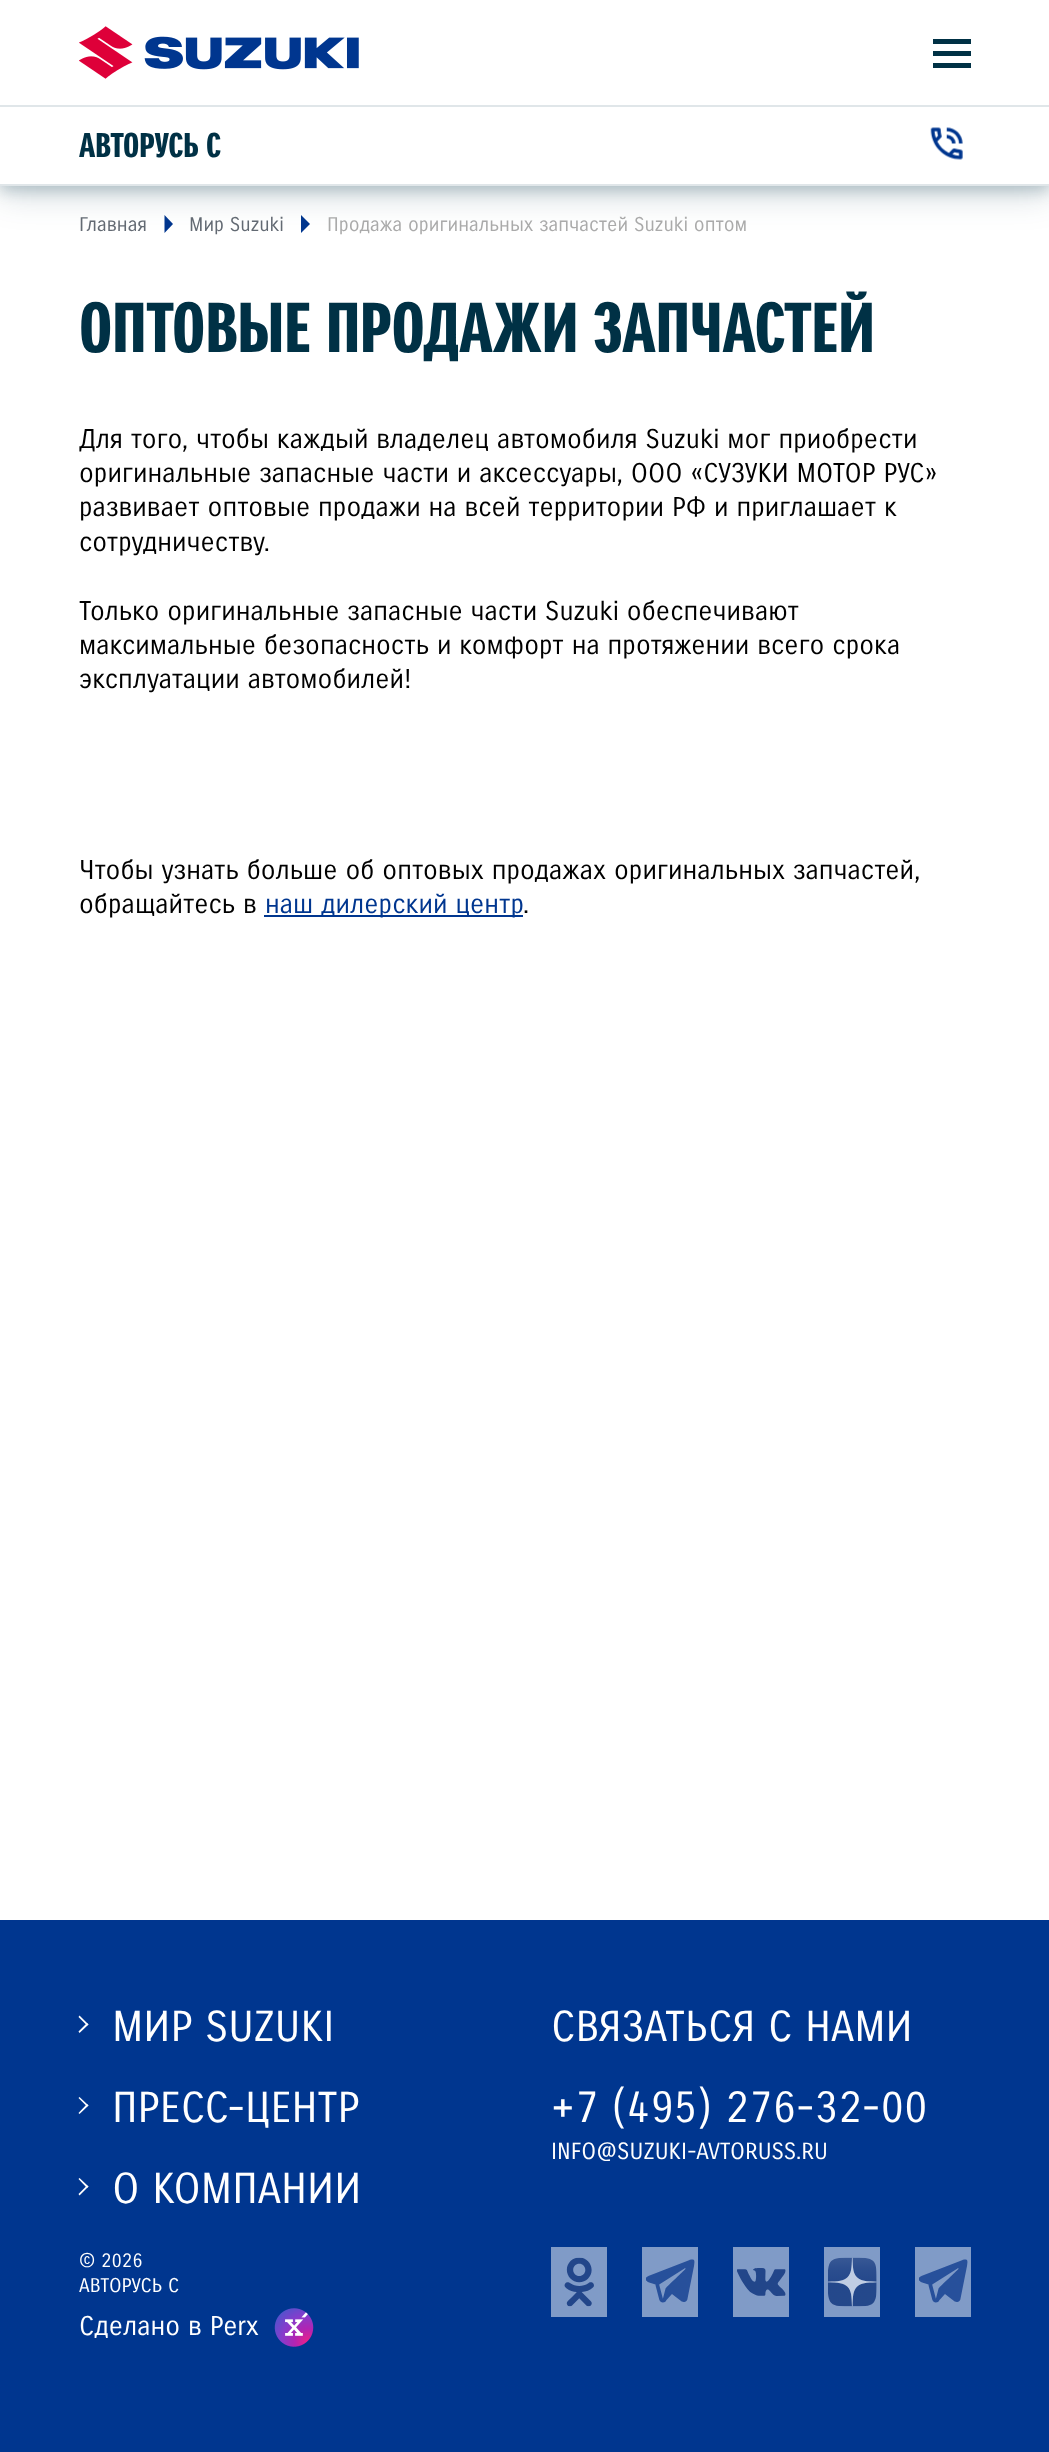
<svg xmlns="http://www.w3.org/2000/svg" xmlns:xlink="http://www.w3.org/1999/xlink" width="1049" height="2452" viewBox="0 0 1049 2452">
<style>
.cls-1{font:bold 33.25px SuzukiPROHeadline;fill:#003145}
.cls-2{font:19.25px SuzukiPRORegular;fill:#636a73}
.cls-3{font:19.25px SuzukiPRORegular;fill:#aaaaaa}
.cls-4{font:bold 68.25px SuzukiPROHeadline;fill:#003145}
.cls-5{font:26.25px SuzukiPRORegular;fill:#000000}
.cls-6{font:26.25px SuzukiPRORegular;fill:#00368f}
.cls-7{font:42px SuzukiPRORegular;fill:#ffffff}
.cls-8{font:43.75px SuzukiPRORegular;fill:#ffffff}
.cls-9{font:22.75px SuzukiPRORegular;fill:#ffffff}
.cls-10{font:19.25px SuzukiPRORegular;fill:#ffffff}
.cls-11{font:26.25px SuzukiPRORegular;fill:#ffffff}
</style>
<rect width="100%" height="100%" fill="#ffffff"/>
<path fill="#00368f" d="M164.5 233V215L173 224Z"/>
<path fill="#00368f" d="M301 233V215L310 224Z"/>
<rect fill="#003145" fill-opacity="0.19" filter="blur(17.5px)" x="0" y="11" width="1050" height="183"/>
<rect fill="#003145" fill-opacity="0.2" filter="blur(7px)" x="0" y="7" width="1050" height="184"/>
<rect fill="#ffffff" x="0" y="0" width="1049" height="184"/>
<rect fill="#e0e6e9" x="0" y="105" width="1049" height="2"/>
<image xlink:href="image0.png" x="79" y="26" width="280" height="53"/>
<rect fill="#003145" x="933" y="39" width="38" height="5"/>
<rect fill="#003145" x="933" y="63" width="38" height="5"/>
<rect fill="#003145" x="933" y="51" width="38" height="5"/>
<image xlink:href="image1.png" x="930" y="127" width="33" height="33"/>
<rect fill="#e0e6e9" x="0" y="184" width="1049" height="2"/>
<rect fill="#00368f" x="264" y="915" width="259" height="2"/>
<rect fill="#00368f" x="0" y="1920" width="1049" height="532"/>
<path fill="#ffffff" d="M78.5 2017L79.5 2015.5L88.5 2024.5L87 2025.5Z"/>
<path fill="#ffffff" d="M78.5 2031.5L87 2023L88.5 2024.5L79.5 2033Z"/>
<path fill="#ffffff" d="M78.5 2098L79.5 2097L88.5 2105.5L87 2106.5Z"/>
<path fill="#ffffff" d="M78.5 2113L87 2104L88.5 2105.5L79.5 2114Z"/>
<path fill="#ffffff" d="M78.5 2179L79.5 2178L88.5 2186.5L87 2188Z"/>
<path fill="#ffffff" d="M78.5 2194L87 2185.5L88.5 2186.5L79.5 2195.5Z"/>
<image xlink:href="image2.png" x="274" y="2308" width="40" height="39"/>
<rect fill="#809bc7" x="551" y="2247" width="56" height="70"/>
<image xlink:href="image3.png" x="564" y="2257" width="30" height="50"/>
<rect fill="#809bc7" x="642" y="2247" width="56" height="70"/>
<image xlink:href="image4.png" x="646" y="2259" width="49" height="44"/>
<rect fill="#809bc7" x="733" y="2247" width="56" height="70"/>
<image xlink:href="image5.png" x="737" y="2268" width="49" height="28"/>
<rect fill="#809bc7" x="824" y="2247" width="56" height="70"/>
<image xlink:href="image6.png" x="828" y="2257" width="49" height="50"/>
<rect fill="#809bc7" x="915" y="2247" width="56" height="70"/>
<image xlink:href="image4.png" x="919" y="2259" width="49" height="44"/>
<text class="cls-1" x="79" y="157">АВТОРУСЬ С</text>
<text class="cls-2" x="79" y="231">Главная</text>
<text class="cls-2" x="189" y="231">Мир Suzuki</text>
<text class="cls-3" x="327" y="231">Продажа оригинальных запчастей Suzuki оптом</text>
<text class="cls-4" x="79" y="352">ОПТОВЫЕ ПРОДАЖИ ЗАПЧАСТЕЙ</text>
<text class="cls-5"><tspan x="79" y="448">Для того, чтобы каждый владелец автомобиля Suzuki мог приобрести</tspan><tspan x="79" y="482">оригинальные запасные части и аксессуары, ООО «СУЗУКИ МОТОР РУС»</tspan><tspan x="79" y="516">развивает оптовые продажи на всей территории РФ и приглашает к</tspan><tspan x="79" y="551">сотрудничеству.</tspan></text>
<text class="cls-5"><tspan x="79" y="620">Только оригинальные запасные части Suzuki обеспечивают</tspan><tspan x="79" y="654">максимальные безопасность и комфорт на протяжении всего срока</tspan><tspan x="79" y="688">эксплуатации автомобилей!</tspan></text>
<text class="cls-5"><tspan x="79" y="879">Чтобы узнать больше об оптовых продажах оригинальных запчастей,</tspan><tspan x="79" y="913">обращайтесь в</tspan></text>
<text class="cls-6" x="265" y="913">наш дилерский центр</text>
<text class="cls-5" x="523" y="913">.</text>
<text class="cls-7"><tspan x="112" y="2041">МИР SUZUKI</tspan><tspan x="112" y="2122">ПРЕСС-ЦЕНТР</tspan><tspan x="112" y="2203">О КОМПАНИИ</tspan></text>
<text class="cls-7" x="551" y="2041">СВЯЗАТЬСЯ С НАМИ</text>
<text class="cls-8" x="551" y="2122">+7 (495) 276-32-00</text>
<text class="cls-9" x="551" y="2159">INFO@SUZUKI-AVTORUSS.RU</text>
<text class="cls-10"><tspan x="79" y="2267">© 2026</tspan><tspan x="79" y="2292">АВТОРУСЬ С</tspan></text>
<text class="cls-11" x="79" y="2335">Сделано в Perx</text>
</svg>
